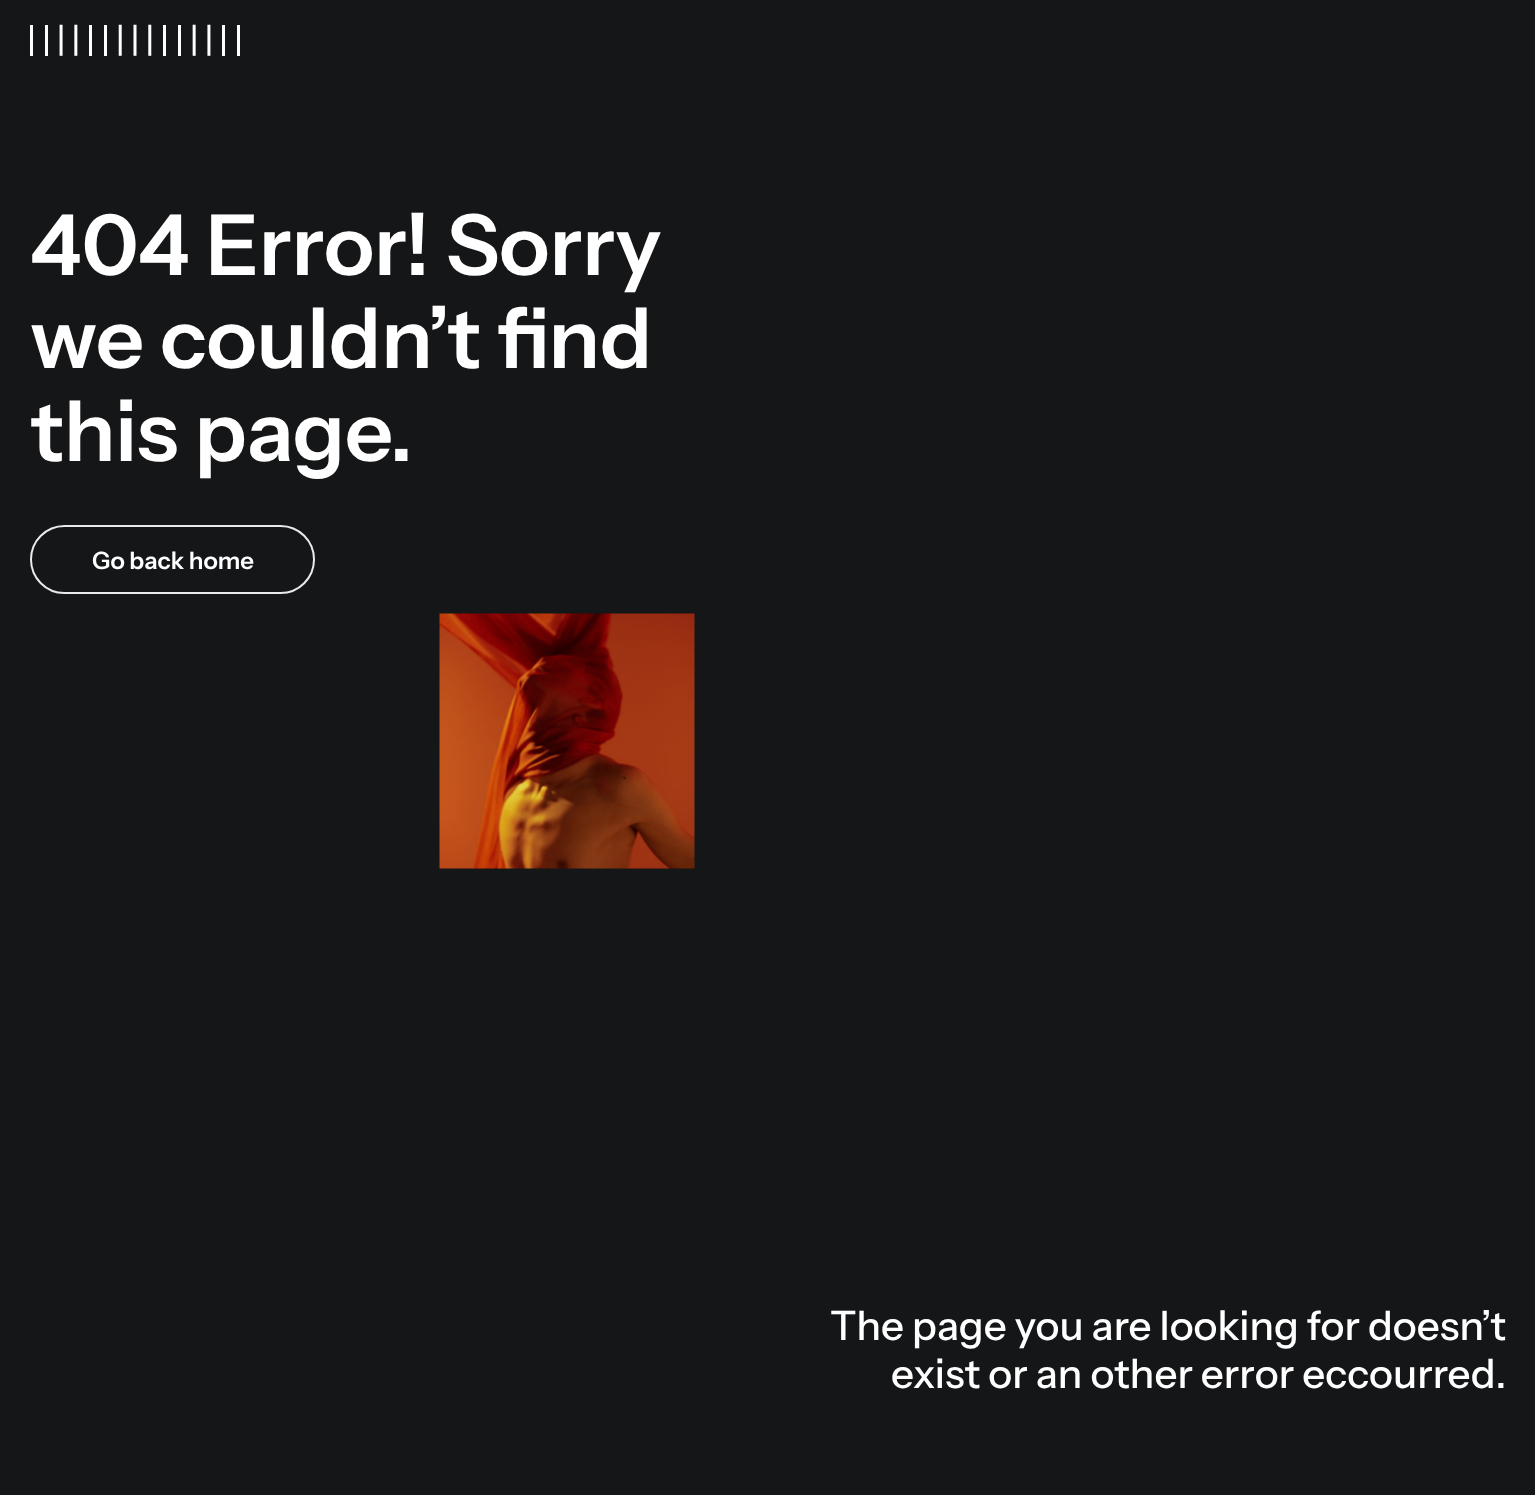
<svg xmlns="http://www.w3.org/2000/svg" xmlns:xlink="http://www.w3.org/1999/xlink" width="1535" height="1495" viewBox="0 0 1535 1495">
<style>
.cls-1{font:600 84px Instrument Sans;fill:#ffffff}
.cls-2{font:600 24px Instrument Sans;fill:#ffffff}
.cls-3{font:500 40.5px Instrument Sans;fill:#ffffff}
</style>
<rect width="100%" height="100%" fill="#141618"/>
<image xlink:href="image0.png" x="30" y="24" width="210" height="32"/>
<rect fill="none" stroke="#eaeaea" stroke-width="2" x="31" y="526" width="283" height="67" rx="33.5"/>
<image xlink:href="image1.png" x="439" y="613" width="256" height="256"/>
<text class="cls-1"><tspan x="30" y="275">404 Error! Sorry</tspan><tspan x="30" y="368">we couldn’t find</tspan><tspan x="30" y="461">this page.</tspan></text>
<text class="cls-2" x="92" y="569">Go back home</text>
<text class="cls-3" x="830" y="1340">The page you are looking for doesn’t</text>
<text class="cls-3" x="891" y="1388">exist or an other error eccourred.</text>
</svg>
